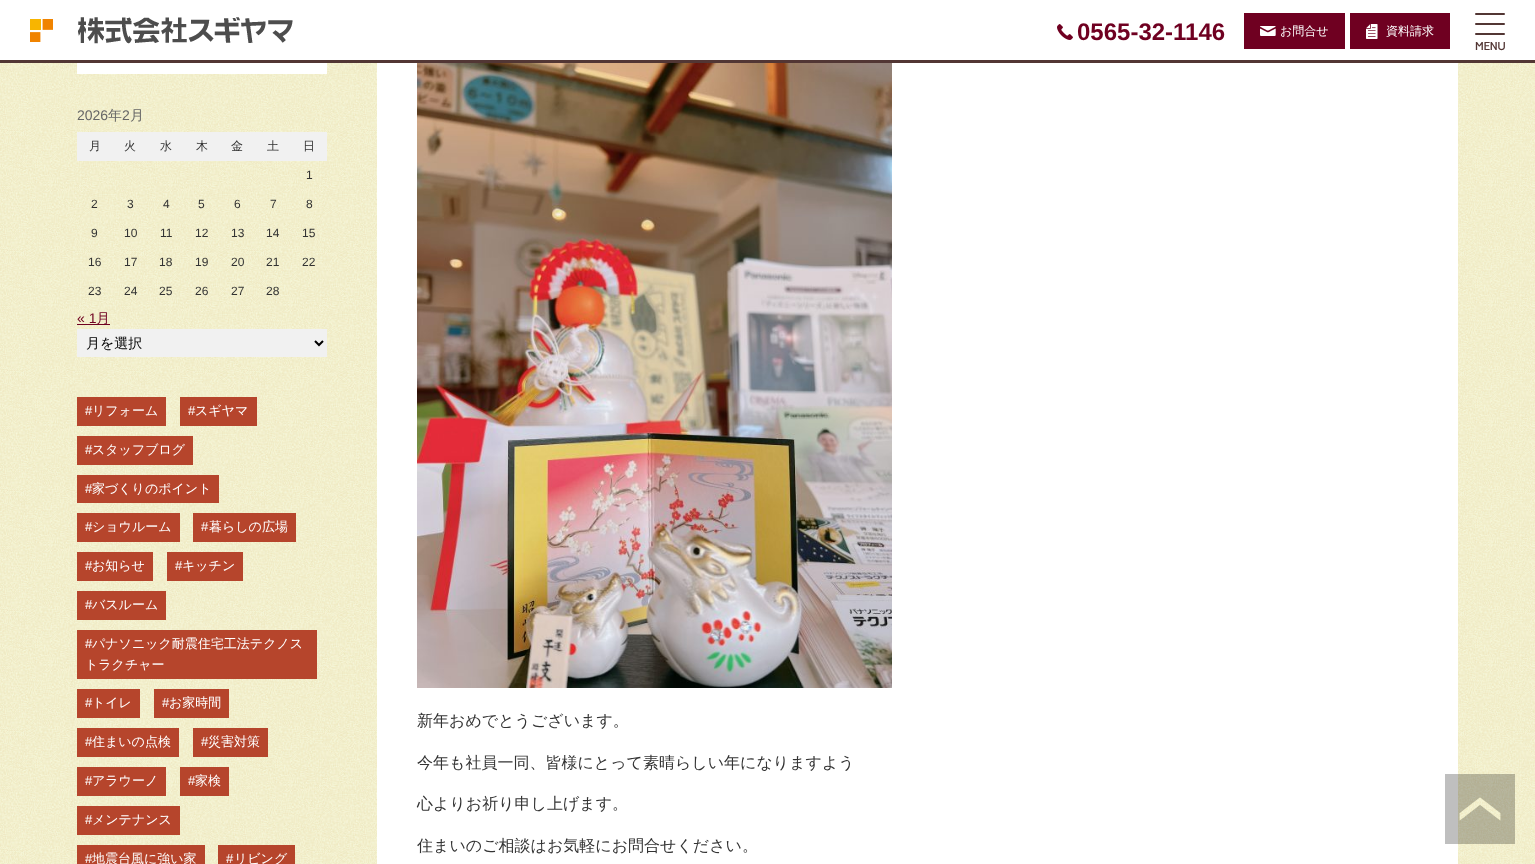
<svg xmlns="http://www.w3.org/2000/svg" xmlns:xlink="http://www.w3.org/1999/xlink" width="1535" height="864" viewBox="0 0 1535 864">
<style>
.cls-1{font:bold 24px Liberation Sans;fill:#6f0021}
.cls-2{font:500 12px WenQuanYi Zen Hei;fill:#ffffff}
.cls-3{font:bold 11px Carme;fill:#523634}
.cls-4{font:14px Liberation Sans;fill:#666666}
.cls-5{font:500 14px WenQuanYi Zen Hei;fill:#666666}
.cls-6{font:500 12px WenQuanYi Zen Hei;fill:#333333}
.cls-7{font:12px Liberation Sans;fill:#333333}
.cls-8{font:14px Liberation Sans;fill:#6f0021}
.cls-9{font:500 14px WenQuanYi Zen Hei;fill:#6f0021}
.cls-10{font:500 14px WenQuanYi Zen Hei;fill:#000000}
.cls-11{font:13px Liberation Sans;fill:#ffffff}
.cls-12{font:500 13px WenQuanYi Zen Hei;fill:#ffffff}
.cls-13{font:500 16px WenQuanYi Zen Hei;fill:#333333}
</style>
<rect width="100%" height="100%" fill="#ffffff"/>
<image xlink:href="image0.png" x="0" y="63" width="1535" height="801"/>
<rect fill="#523634" x="0" y="60" width="1535" height="3"/>
<image xlink:href="image1.png" x="30" y="19" width="23" height="23"/>
<image xlink:href="image2.png" x="78" y="17" width="215" height="27"/>
<image xlink:href="image3.png" x="1057" y="24" width="16" height="16"/>
<rect fill="#6f0021" x="1244" y="13" width="101" height="36"/>
<image xlink:href="image4.png" x="1260" y="26" width="16" height="10"/>
<rect fill="#6f0021" x="1350" y="13" width="100" height="36"/>
<image xlink:href="image5.png" x="1366" y="24" width="12" height="15"/>
<rect fill="#523634" x="1475" y="13" width="30" height="2" rx="1"/>
<rect fill="#523634" x="1475" y="23" width="30" height="2" rx="1"/>
<rect fill="#523634" x="1475" y="33" width="30" height="2" rx="1"/>
<rect fill="#ffffff" x="77" y="63" width="250" height="11"/>
<rect fill="#f1f1f1" x="77" y="132" width="250" height="29"/>
<rect fill="#6f0021" x="77" y="324" width="33" height="1"/>
<rect fill="#f1f1f1" x="77" y="329" width="250" height="28"/>
<path fill="none" stroke="#000000" stroke-width="2" d="M315 341L319 345L323 341"/>
<rect fill="#b6452c" x="77" y="397" width="89" height="29"/>
<rect fill="#b6452c" x="180" y="397" width="77" height="29"/>
<rect fill="#b6452c" x="77" y="436" width="116" height="29"/>
<rect fill="#b6452c" x="77" y="475" width="142" height="28"/>
<rect fill="#b6452c" x="77" y="513" width="103" height="29"/>
<rect fill="#b6452c" x="193" y="513" width="103" height="29"/>
<rect fill="#b6452c" x="77" y="552" width="76" height="29"/>
<rect fill="#b6452c" x="167" y="552" width="76" height="29"/>
<rect fill="#b6452c" x="77" y="591" width="89" height="29"/>
<rect fill="#b6452c" x="77" y="630" width="240" height="49"/>
<rect fill="#b6452c" x="77" y="689" width="63" height="29"/>
<rect fill="#b6452c" x="154" y="689" width="75" height="29"/>
<rect fill="#b6452c" x="77" y="728" width="102" height="29"/>
<rect fill="#b6452c" x="193" y="728" width="75" height="29"/>
<rect fill="#b6452c" x="77" y="767" width="89" height="29"/>
<rect fill="#b6452c" x="180" y="767" width="49" height="29"/>
<rect fill="#b6452c" x="77" y="806" width="103" height="29"/>
<rect fill="#b6452c" x="77" y="845" width="128" height="19"/>
<rect fill="#b6452c" x="218" y="845" width="77" height="19"/>
<rect fill="#ffffff" x="377" y="63" width="1081" height="801"/>
<image xlink:href="image6.png" x="417" y="63" width="475" height="625"/>
<image xlink:href="image7.png" x="1445" y="774" width="70" height="70"/>
<text class="cls-1" x="1077" y="40">0565-32-1146</text>
<text class="cls-2" x="1280" y="35">お問合せ</text>
<text class="cls-2" x="1386" y="35">資料請求</text>
<text class="cls-3" x="1475" y="50">MENU</text>
<text class="cls-4" x="77" y="120">2026</text>
<text class="cls-5" x="108" y="120">年</text>
<text class="cls-4" x="122" y="120">2</text>
<text class="cls-5" x="130" y="120">月</text>
<text class="cls-6" x="89" y="150">月</text>
<text class="cls-6" x="124" y="150">火</text>
<text class="cls-6" x="160" y="150">水</text>
<text class="cls-6" x="196" y="150">木</text>
<text class="cls-6" x="231" y="150">金</text>
<text class="cls-6" x="267" y="150">土</text>
<text class="cls-6" x="303" y="150">日</text>
<text class="cls-7" x="306" y="179">1</text>
<text class="cls-7" x="91" y="208">2</text>
<text class="cls-7" x="127" y="208">3</text>
<text class="cls-7" x="163" y="208">4</text>
<text class="cls-7" x="198" y="208">5</text>
<text class="cls-7" x="234" y="208">6</text>
<text class="cls-7" x="270" y="208">7</text>
<text class="cls-7" x="306" y="208">8</text>
<text class="cls-7" x="91" y="237">9</text>
<text class="cls-7" x="124" y="237">10</text>
<text class="cls-7" x="160" y="237">11</text>
<text class="cls-7" x="195" y="237">12</text>
<text class="cls-7" x="231" y="237">13</text>
<text class="cls-7" x="266" y="237">14</text>
<text class="cls-7" x="302" y="237">15</text>
<text class="cls-7" x="88" y="266">16</text>
<text class="cls-7" x="124" y="266">17</text>
<text class="cls-7" x="159" y="266">18</text>
<text class="cls-7" x="195" y="266">19</text>
<text class="cls-7" x="231" y="266">20</text>
<text class="cls-7" x="266" y="266">21</text>
<text class="cls-7" x="302" y="266">22</text>
<text class="cls-7" x="88" y="295">23</text>
<text class="cls-7" x="124" y="295">24</text>
<text class="cls-7" x="159" y="295">25</text>
<text class="cls-7" x="195" y="295">26</text>
<text class="cls-7" x="231" y="295">27</text>
<text class="cls-7" x="266" y="295">28</text>
<text class="cls-8" x="77" y="323">« 1</text>
<text class="cls-9" x="96" y="323">月</text>
<text class="cls-10" x="86" y="348">月を選択</text>
<text class="cls-11" x="85" y="415">#</text>
<text class="cls-12" x="92" y="415">リフォーム</text>
<text class="cls-11" x="188" y="415">#</text>
<text class="cls-12" x="195" y="415">スギヤマ</text>
<text class="cls-11" x="85" y="454">#</text>
<text class="cls-12" x="92" y="454">スタッフブログ</text>
<text class="cls-11" x="85" y="493">#</text>
<text class="cls-12" x="92" y="493">家づくりのポイント</text>
<text class="cls-11" x="85" y="531">#</text>
<text class="cls-12" x="92" y="531">ショウルーム</text>
<text class="cls-11" x="201" y="531">#</text>
<text class="cls-12" x="209" y="531">暮らしの広場</text>
<text class="cls-11" x="85" y="570">#</text>
<text class="cls-12" x="92" y="570">お知らせ</text>
<text class="cls-11" x="175" y="570">#</text>
<text class="cls-12" x="182" y="570">キッチン</text>
<text class="cls-11" x="85" y="609">#</text>
<text class="cls-12" x="92" y="609">バスルーム</text>
<text class="cls-11" x="85" y="648">#</text>
<text class="cls-12" x="92" y="648">パナソニック耐震住宅工法テクノス</text>
<text class="cls-12" x="85" y="669">トラクチャー</text>
<text class="cls-11" x="85" y="707">#</text>
<text class="cls-12" x="92" y="707">トイレ</text>
<text class="cls-11" x="162" y="707">#</text>
<text class="cls-12" x="169" y="707">お家時間</text>
<text class="cls-11" x="85" y="746">#</text>
<text class="cls-12" x="92" y="746">住まいの点検</text>
<text class="cls-11" x="201" y="746">#</text>
<text class="cls-12" x="208" y="746">災害対策</text>
<text class="cls-11" x="85" y="785">#</text>
<text class="cls-12" x="92" y="785">アラウーノ</text>
<text class="cls-11" x="188" y="785">#</text>
<text class="cls-12" x="195" y="785">家検</text>
<text class="cls-11" x="85" y="824">#</text>
<text class="cls-12" x="92" y="824">メンテナンス</text>
<text class="cls-11" x="85" y="863">#</text>
<text class="cls-12" x="92" y="863">地震台風に強い家</text>
<text class="cls-11" x="226" y="863">#</text>
<text class="cls-12" x="234" y="863">リビング</text>
<text class="cls-13" x="417" y="726">新年おめでとうございます。</text>
<text class="cls-13" x="417" y="768">今年も社員一同、皆様にとって素晴らしい年になりますよう</text>
<text class="cls-13" x="417" y="809">心よりお祈り申し上げます。</text>
<text class="cls-13" x="417" y="851">住まいのご相談はお気軽にお問合せください。</text>
</svg>
